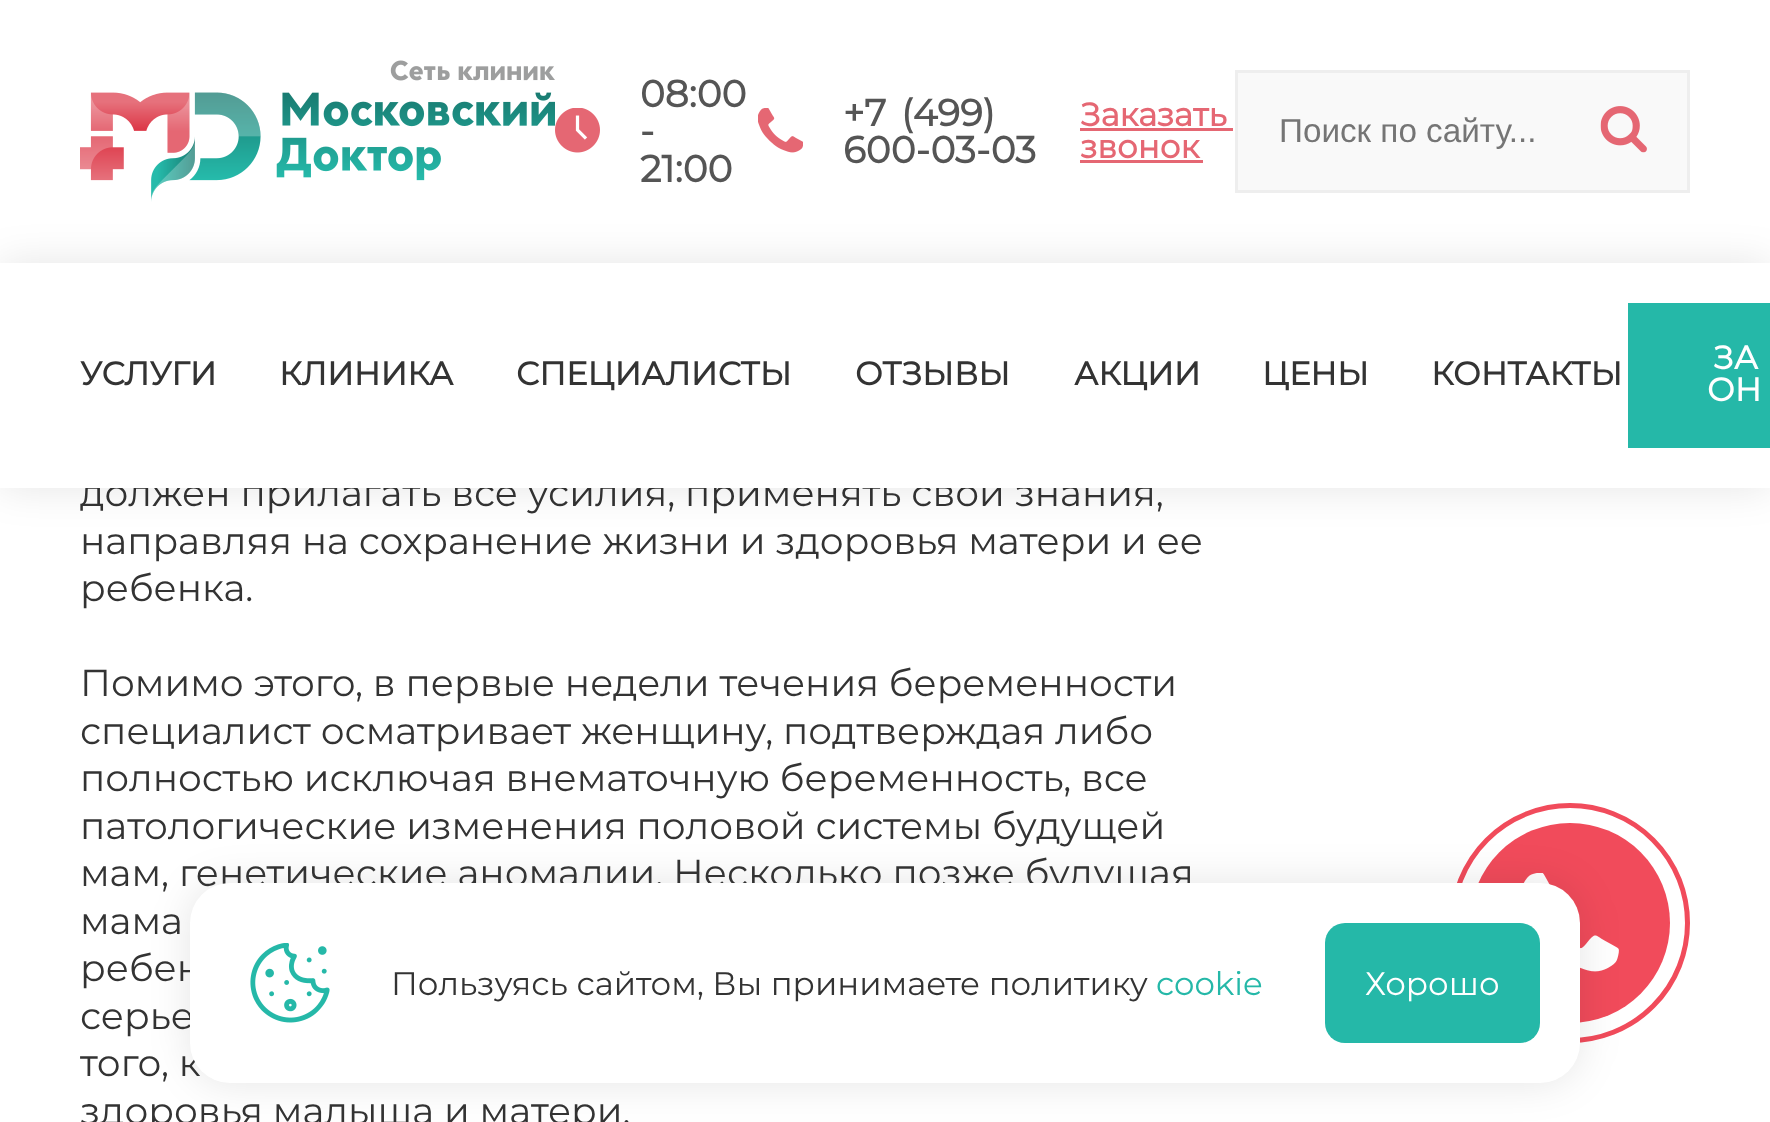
<svg xmlns="http://www.w3.org/2000/svg" xmlns:xlink="http://www.w3.org/1999/xlink" width="1770" height="1122" viewBox="0 0 1770 1122">
<style>
.cls-1{font:bold 37.5px Montserrat;fill:#555555}
.cls-2{font:bold 32.5px Montserrat;fill:#e56773}
.cls-3{font:33.25px Liberation Sans;fill:#757575}
.cls-4{font:37.5px Montserrat;fill:#333333}
.cls-5{font:bold 32.5px Montserrat;fill:#ffffff}
.cls-6{font:bold 32.5px Montserrat;fill:#333333}
.cls-7{font:32.5px Montserrat;fill:#333333}
.cls-8{font:32.5px Montserrat;fill:#25b8a8}
.cls-9{font:32.5px Montserrat;fill:#ffffff}
</style>
<defs>
<clipPath id="clip1"><path d="M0 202H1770V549H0ZM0 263H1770V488H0Z" clip-rule="evenodd"/></clipPath>
</defs>
<rect width="100%" height="100%" fill="#ffffff"/>
<image xlink:href="image0.png" x="80" y="60" width="475" height="142"/>
<image xlink:href="image1.png" x="555" y="108" width="45" height="45"/>
<image xlink:href="image2.png" x="758" y="108" width="45" height="45"/>
<rect fill="#e56773" x="1080" y="128" width="153" height="3"/>
<rect fill="#e56773" x="1080" y="160" width="123" height="3"/>
<rect fill="#f9f9f9" stroke="#eeeeee" stroke-width="3" x="1236.5" y="71.5" width="452" height="120"/>
<image xlink:href="image3.png" x="1600" y="106" width="47" height="47"/>
<circle fill="none" stroke="#f14b5b" stroke-width="5" cx="1570" cy="923" r="117.5"/>
<circle fill="#f14b5b" cx="1570" cy="923" r="100"/>
<image xlink:href="image5.png" x="1523" y="873" width="96" height="99"/>
<rect fill="#000000" fill-opacity="0.1" filter="blur(20px)" x="190" y="883" width="1390" height="200" rx="40"/>
<text class="cls-1"><tspan x="640" y="107">08:00</tspan><tspan x="640" y="144">-</tspan><tspan x="640" y="182">21:00</tspan></text>
<text class="cls-1"><tspan x="843" y="126" word-spacing="5">+7 (499)</tspan><tspan x="843" y="163">600-03-03</tspan></text>
<text class="cls-2"><tspan x="1080" y="126">Заказать</tspan><tspan x="1080" y="158">звонок</tspan></text>
<text class="cls-3" x="1279" y="142">Поиск по сайту...</text>
<text class="cls-4" x="80" y="506">должен прилагать все усилия, применять свои знания,</text>
<rect fill="#ffffff" x="85" y="486" width="1067" height="2"/>
<g clip-path="url(#clip1)">
<rect fill="#000000" fill-opacity="0.1" filter="blur(20px)" x="0" y="263" width="1770" height="225"/>
</g>
<rect fill="#25b8a8" x="1628" y="303" width="142" height="145"/>
<text class="cls-5" x="1707" y="401">ОН</text>
<text class="cls-5" x="1713" y="369">ЗА</text>
<text class="cls-6" x="1431" y="385">КОНТАКТЫ</text>
<text class="cls-6" x="1262" y="385">ЦЕНЫ</text>
<text class="cls-6" x="1074" y="385">АКЦИИ</text>
<text class="cls-6" x="855" y="385">ОТЗЫВЫ</text>
<text class="cls-6" x="516" y="385">СПЕЦИАЛИСТЫ</text>
<text class="cls-6" x="279" y="385">КЛИНИКА</text>
<text class="cls-6" x="80" y="385">УСЛУГИ</text>
<text class="cls-4"><tspan x="80" y="554">направляя на сохранение жизни и здоровья матери и ее</tspan><tspan x="80" y="601">ребенка.</tspan></text>
<text class="cls-4"><tspan x="80" y="696">Помимо этого, в первые недели течения беременности</tspan><tspan x="80" y="744">специалист осматривает женщину, подтверждая либо</tspan><tspan x="80" y="791">полностью исключая внематочную беременность, все</tspan><tspan x="80" y="839">патологические изменения половой системы будущей</tspan><tspan x="80" y="886">мам, генетические аномалии. Несколько позже будущая</tspan><tspan x="80" y="934">мама</tspan><tspan x="80" y="981">ребен</tspan><tspan x="80" y="1029">серье</tspan><tspan x="80" y="1076">того, к</tspan><tspan x="80" y="1124">здоровья малыша и матери.</tspan></text>
<rect fill="#ffffff" x="190" y="883" width="1390" height="200" rx="40"/>
<image xlink:href="image4.png" x="250" y="943" width="80" height="80"/>
<text class="cls-7" x="391" y="995">Пользуясь сайтом, Вы принимаете политику</text>
<text class="cls-8" x="1156" y="995">cookie</text>
<rect fill="#25b8a8" x="1325" y="923" width="215" height="120" rx="20"/>
<text class="cls-9" x="1365" y="995">Хорошо</text>
</svg>
